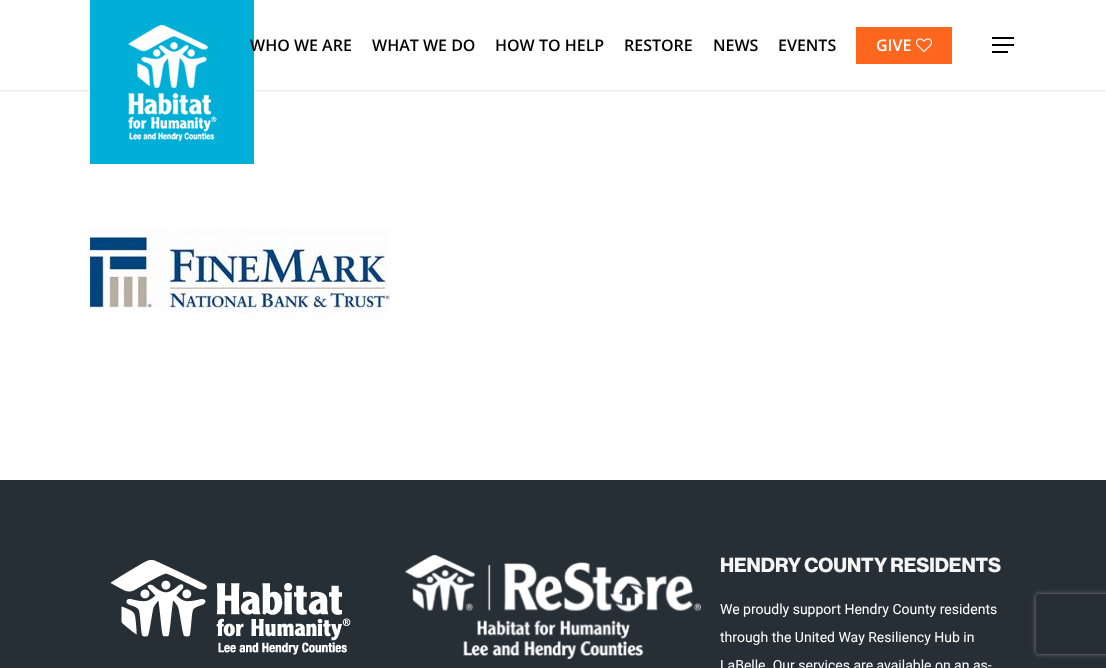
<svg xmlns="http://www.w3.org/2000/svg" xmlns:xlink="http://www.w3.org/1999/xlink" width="1106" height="668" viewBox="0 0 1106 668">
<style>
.cls-1{font:600 16px Open Sans;fill:#000000}
.cls-2{font:600 16px Open Sans;fill:#ffffff}
.cls-3{font:bold 20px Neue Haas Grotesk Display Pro;fill:#f5f5f5}
.cls-4{font:14px Roboto;fill:#ffffff}
</style>
<defs>
<clipPath id="clip1"><rect x="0" y="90" width="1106" height="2"/></clipPath>
<clipPath id="clip2"><path d="M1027 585H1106V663H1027ZM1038 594H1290C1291 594 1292 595 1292 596V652C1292 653 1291 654 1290 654H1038C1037 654 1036 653 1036 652V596C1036 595 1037 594 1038 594Z" clip-rule="evenodd"/></clipPath>
</defs>
<rect width="100%" height="100%" fill="#ffffff"/>
<g clip-path="url(#clip1)">
<rect fill="#000000" fill-opacity="0.22" filter="blur(1.5px)" x="0" y="0" width="1106" height="90"/>
</g>
<rect fill="#00afd7" x="90" y="0" width="164" height="164"/>
<image xlink:href="image0.png" x="128" y="25" width="89" height="116"/>
<rect fill="#ff671f" x="856" y="27" width="96" height="37"/>
<image xlink:href="image1.png" x="916" y="38" width="16" height="15"/>
<rect fill="#000000" x="992" y="37" width="22" height="2"/>
<rect fill="#000000" x="992" y="51" width="16" height="2"/>
<rect fill="#000000" x="992" y="44" width="22" height="2"/>
<image xlink:href="image2.png" x="90" y="226" width="300" height="96"/>
<rect fill="#262f36" x="0" y="480" width="1106" height="188"/>
<image xlink:href="image3.png" x="110" y="560" width="241" height="95"/>
<image xlink:href="image4.png" x="405" y="555" width="296" height="104"/>
<g clip-path="url(#clip2)">
<rect fill="#808080" filter="blur(2.5px)" x="1036" y="594" width="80" height="60" rx="2"/>
</g>
<text class="cls-1" x="250" y="51">WHO WE ARE</text>
<text class="cls-1" x="372" y="51">WHAT WE DO</text>
<text class="cls-1" x="495" y="51">HOW TO HELP</text>
<text class="cls-1" x="624" y="51">RESTORE</text>
<text class="cls-1" x="713" y="51">NEWS</text>
<text class="cls-1" x="778" y="51">EVENTS</text>
<text class="cls-2" x="876" y="51">GIVE</text>
<text class="cls-3" x="720" y="572">HENDRY COUNTY RESIDENTS</text>
<text class="cls-4" x="720" y="614">We proudly support Hendry County residents</text>
<text class="cls-4" x="720" y="642">through the United Way Resiliency Hub in</text>
<text class="cls-4" x="720" y="670">LaBelle. Our services are available on an as-</text>
</svg>
